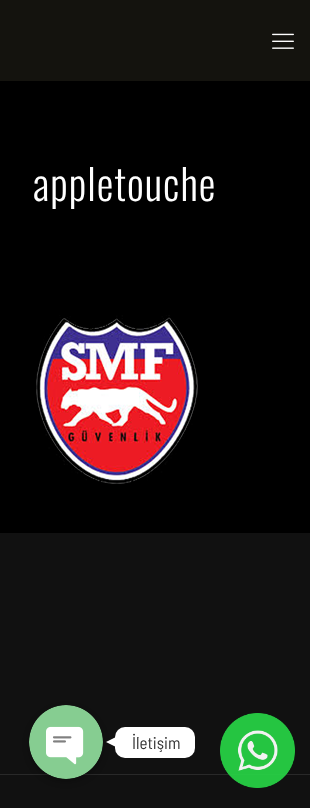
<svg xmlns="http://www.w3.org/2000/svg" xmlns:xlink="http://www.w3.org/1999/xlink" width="310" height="808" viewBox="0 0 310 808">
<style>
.cls-1{font:300 42px Oswald;letter-spacing:1px;fill:#ffffff}
.cls-2{font:17px Barlow Semi Condensed;fill:#333333}
</style>
<rect width="100%" height="100%" fill="#000000"/>
<rect fill="#14130e" x="0" y="0" width="310" height="81"/>
<image xlink:href="image0.png" x="272" y="33" width="22" height="16"/>
<image xlink:href="image1.png" x="36" y="315" width="162" height="169"/>
<rect fill="#111111" x="0" y="533" width="310" height="275"/>
<rect fill="#292929" x="0" y="774" width="310" height="1"/>
<rect fill="#000000" fill-opacity="0.25" filter="blur(3px)" x="29" y="708" width="74" height="74" rx="37"/>
<image xlink:href="image2.png" x="29" y="705" width="74" height="74"/>
<rect fill="#ffffff" x="115" y="727" width="80" height="31" rx="10"/>
<path fill="#ffffff" d="M116 737V747L106 742Z"/>
<image xlink:href="image3.png" x="220" y="713" width="75" height="75"/>
<text class="cls-1" x="33" y="201">appletouche</text>
<text class="cls-2" x="132" y="749">İletişim</text>
</svg>
